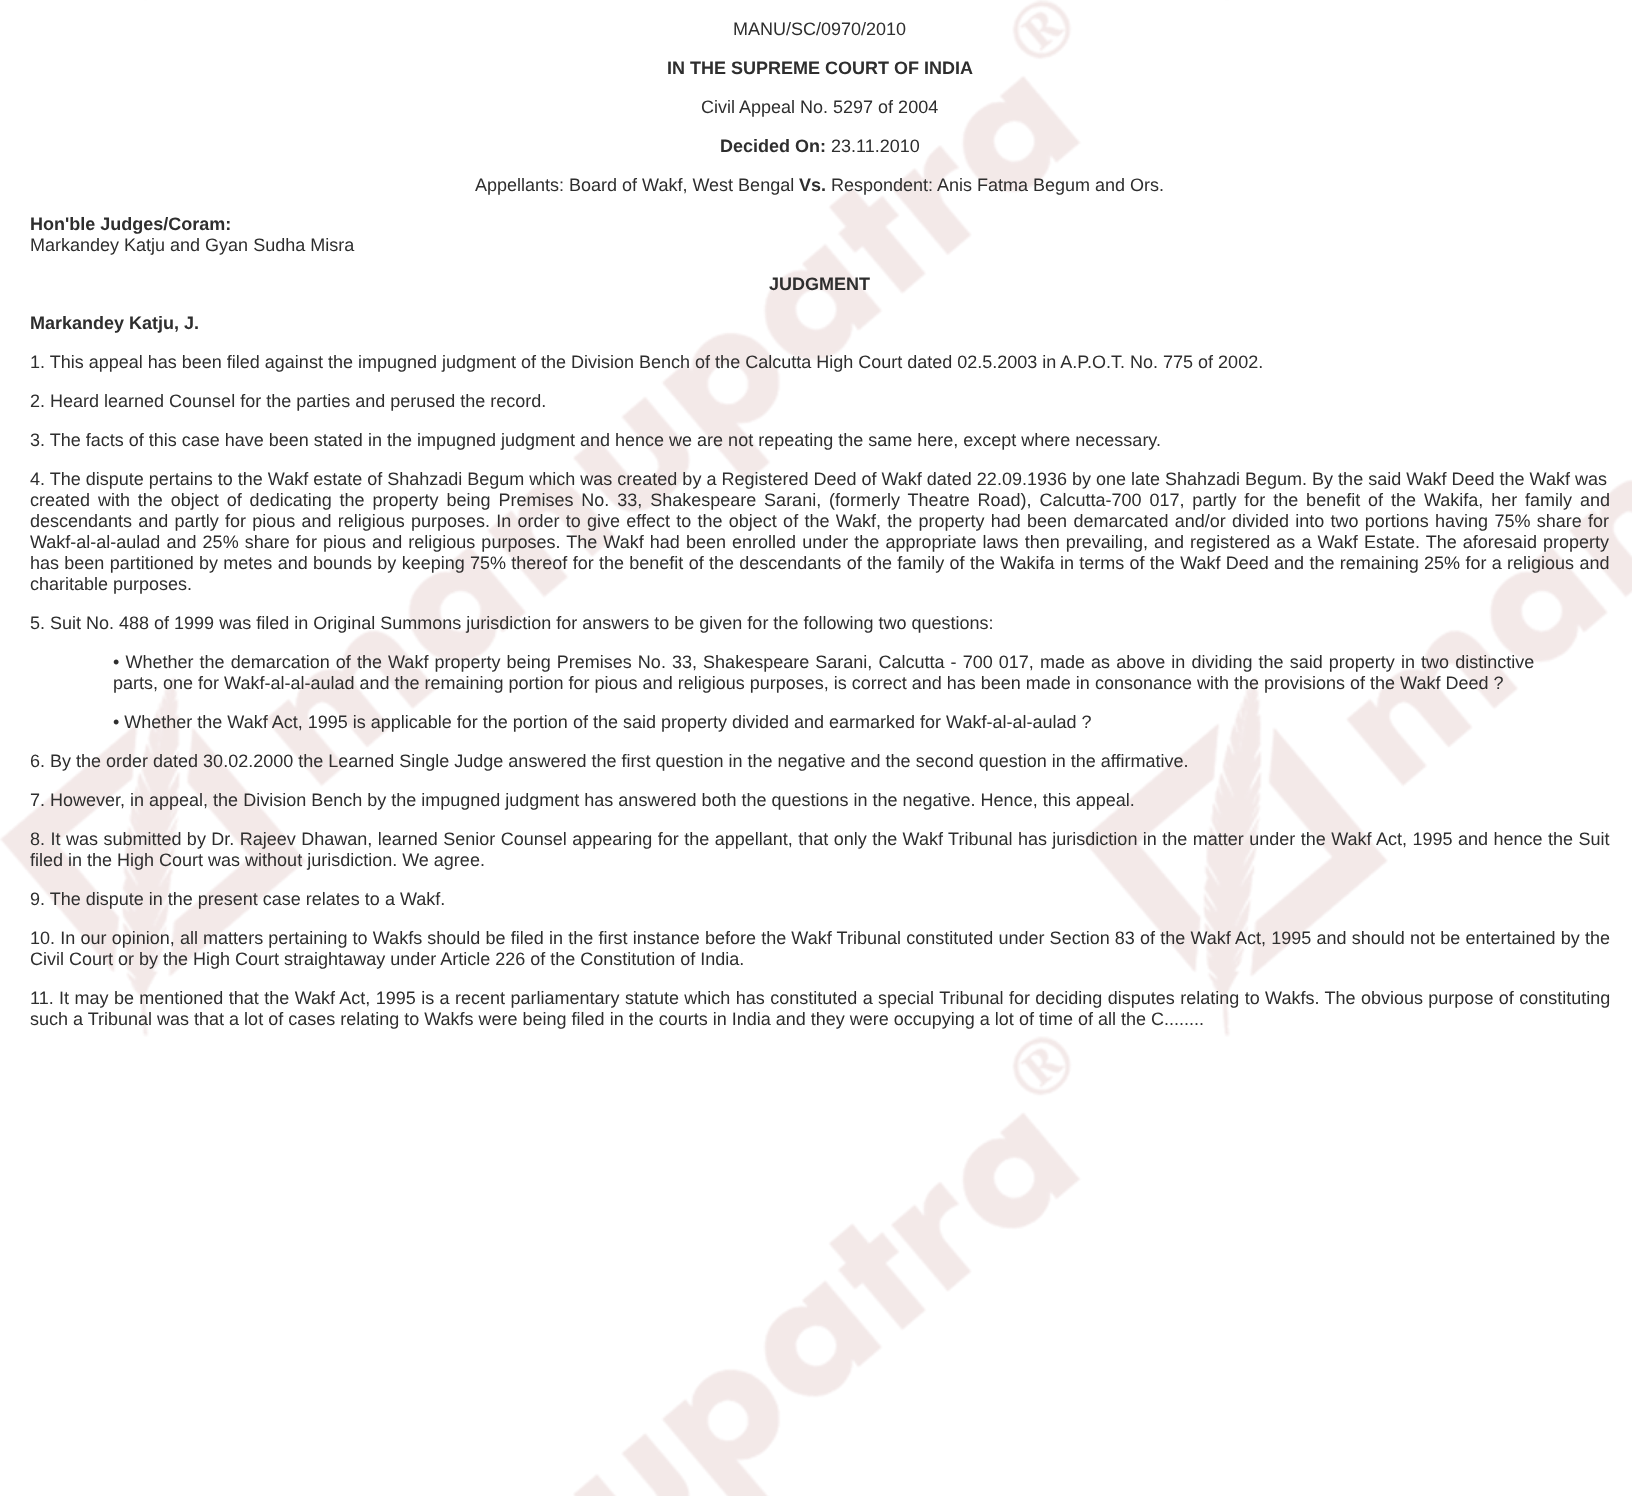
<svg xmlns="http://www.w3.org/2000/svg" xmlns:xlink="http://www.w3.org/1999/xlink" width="1632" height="1496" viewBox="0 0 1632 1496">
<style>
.cls-1{font:18px Liberation Sans;fill:#2e2e2e}
.cls-2{font:bold 18px Liberation Sans;fill:#2e2e2e}
</style>
<rect width="100%" height="100%" fill="#ffffff"/>
<image xlink:href="image0.png" x="0" y="0" width="1632" height="1496"/>
<text class="cls-1" x="733" y="35">MANU/SC/0970/2010</text>
<text class="cls-2" x="667" y="74">IN THE SUPREME COURT OF INDIA</text>
<text class="cls-1" x="701" y="113">Civil Appeal No. 5297 of 2004</text>
<text class="cls-2" x="720" y="152">Decided On:</text>
<text class="cls-1" x="831" y="152">23.11.2010</text>
<text class="cls-1" x="475" y="191">Appellants: Board of Wakf, West Bengal</text>
<text class="cls-2" x="799" y="191">Vs.</text>
<text class="cls-1" x="831" y="191">Respondent:</text>
<text class="cls-1" x="937" y="191">Anis Fatma Begum and Ors.</text>
<text class="cls-2" x="30" y="230">Hon'ble Judges/Coram:</text>
<text class="cls-1" x="30" y="251">Markandey Katju and Gyan Sudha Misra</text>
<text class="cls-2" x="769" y="290">JUDGMENT</text>
<text class="cls-2" x="30" y="329">Markandey Katju, J.</text>
<text class="cls-1" x="30" y="368">1. This appeal has been filed against the impugned judgment of the Division Bench of the Calcutta High Court dated 02.5.2003 in A.P.O.T. No. 775 of 2002.</text>
<text class="cls-1" x="30" y="407">2. Heard learned Counsel for the parties and perused the record.</text>
<text class="cls-1" x="30" y="446">3. The facts of this case have been stated in the impugned judgment and hence we are not repeating the same here, except where necessary.</text>
<text class="cls-1"><tspan x="30" y="485">4. The dispute pertains to the Wakf estate of Shahzadi Begum which was created by a Registered Deed of Wakf dated 22.09.1936 by one late Shahzadi Begum. By the said Wakf Deed the Wakf was</tspan><tspan x="30" y="506" word-spacing="2.9">created with the object of dedicating the property being Premises No. 33, Shakespeare Sarani, (formerly Theatre Road), Calcutta-700 017, partly for the benefit of the Wakifa, her family and</tspan><tspan x="30" y="527" word-spacing="1.25">descendants and partly for pious and religious purposes. In order to give effect to the object of the Wakf, the property had been demarcated and/or divided into two portions having 75% share for</tspan><tspan x="30" y="548" word-spacing="1.1">Wakf-al-al-aulad and 25% share for pious and religious purposes. The Wakf had been enrolled under the appropriate laws then prevailing, and registered as a Wakf Estate. The aforesaid property</tspan><tspan x="30" y="569" word-spacing="0.3">has been partitioned by metes and bounds by keeping 75% thereof for the benefit of the descendants of the family of the Wakifa in terms of the Wakf Deed and the remaining 25% for a religious and</tspan><tspan x="30" y="590">charitable purposes.</tspan></text>
<text class="cls-1" x="30" y="629">5. Suit No. 488 of 1999 was filed in Original Summons jurisdiction for answers to be given for the following two questions:</text>
<text class="cls-1"><tspan x="113" y="668" word-spacing="1.1">• Whether the demarcation of the Wakf property being Premises No. 33, Shakespeare Sarani, Calcutta - 700 017, made as above in dividing the said property in two distinctive</tspan><tspan x="113" y="689">parts, one for Wakf-al-al-aulad and the remaining portion for pious and religious purposes, is correct and has been made in consonance with the provisions of the Wakf Deed ?</tspan></text>
<text class="cls-1" x="113" y="728">• Whether the Wakf Act, 1995 is applicable for the portion of the said property divided and earmarked for Wakf-al-al-aulad ?</text>
<text class="cls-1" x="30" y="767">6. By the order dated 30.02.2000 the Learned Single Judge answered the first question in the negative and the second question in the affirmative.</text>
<text class="cls-1" x="30" y="806">7. However, in appeal, the Division Bench by the impugned judgment has answered both the questions in the negative. Hence, this appeal.</text>
<text class="cls-1"><tspan x="30" y="845" word-spacing="0.45">8. It was submitted by Dr. Rajeev Dhawan, learned Senior Counsel appearing for the appellant, that only the Wakf Tribunal has jurisdiction in the matter under the Wakf Act, 1995 and hence the Suit</tspan><tspan x="30" y="866">filed in the High Court was without jurisdiction. We agree.</tspan></text>
<text class="cls-1" x="30" y="905">9. The dispute in the present case relates to a Wakf.</text>
<text class="cls-1"><tspan x="30" y="944" word-spacing="0.2">10. In our opinion, all matters pertaining to Wakfs should be filed in the first instance before the Wakf Tribunal constituted under Section 83 of the Wakf Act, 1995 and should not be entertained by the</tspan><tspan x="30" y="965">Civil Court or by the High Court straightaway under Article 226 of the Constitution of India.</tspan></text>
<text class="cls-1"><tspan x="30" y="1004" word-spacing="0.4">11. It may be mentioned that the Wakf Act, 1995 is a recent parliamentary statute which has constituted a special Tribunal for deciding disputes relating to Wakfs. The obvious purpose of constituting</tspan><tspan x="30" y="1025">such a Tribunal was that a lot of cases relating to Wakfs were being filed in the courts in India and they were occupying a lot of time of all the C........</tspan></text>
</svg>
